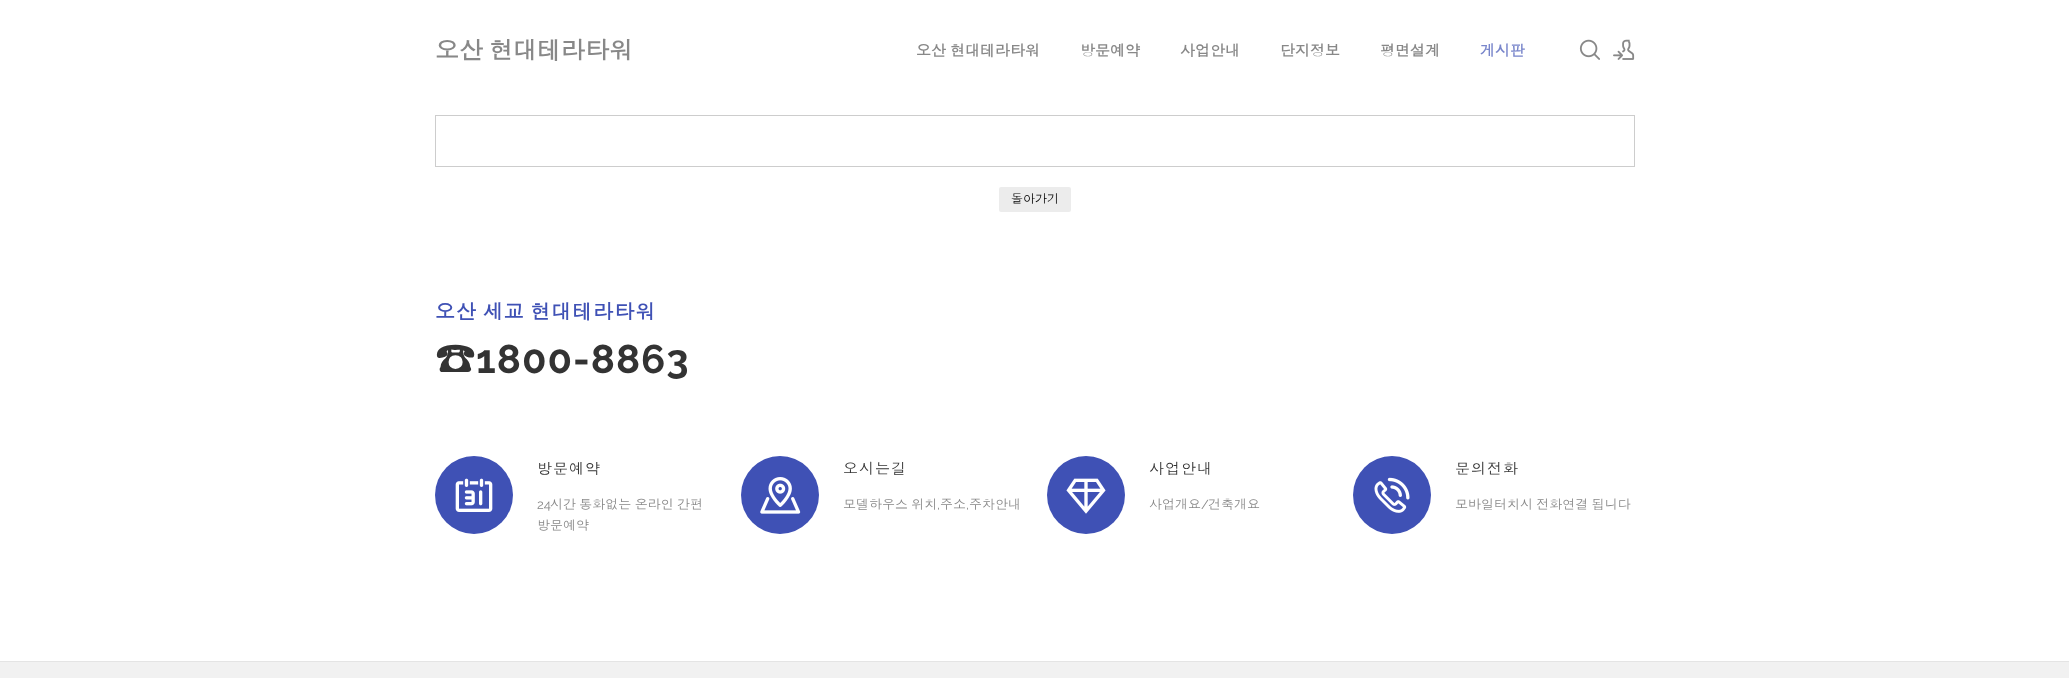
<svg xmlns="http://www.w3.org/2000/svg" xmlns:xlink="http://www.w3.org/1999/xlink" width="2069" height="678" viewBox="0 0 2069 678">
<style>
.cls-1{font:bold 24px Dotum;fill:#888888}
.cls-2{font:bold 15px Dotum;fill:#888888}
.cls-3{font:bold 15px Dotum;fill:#7986cb}
.cls-4{font:12px Dotum;fill:#000000}
.cls-5{font:bold 20px Dotum;letter-spacing:1px;fill:#3f51b5}
.cls-6{font:bold 40px Dotum;letter-spacing:1px;fill:#333333}
.cls-7{font:bold 40px Raleway;letter-spacing:1px;fill:#333333}
.cls-8{font:15px Dotum;letter-spacing:1px;fill:#333333}
.cls-9{font:13px Raleway;fill:#888888}
.cls-10{font:13px Dotum;fill:#888888}
</style>
<rect width="100%" height="100%" fill="#ffffff"/>
<image xlink:href="image0.png" x="1579" y="39" width="21" height="21"/>
<image xlink:href="image1.png" x="1613" y="39" width="22" height="21"/>
<rect fill="none" stroke="#cdcdcd" x="435.5" y="115.5" width="1199" height="51"/>
<rect fill="#ececec" x="999" y="187" width="72" height="25" rx="2"/>
<circle fill="#3f51b5" cx="474" cy="495" r="39"/>
<image xlink:href="image2.png" x="455" y="478" width="38" height="34"/>
<circle fill="#3f51b5" cx="780" cy="495" r="39"/>
<image xlink:href="image3.png" x="760" y="477" width="41" height="37"/>
<circle fill="#3f51b5" cx="1086" cy="495" r="39"/>
<image xlink:href="image4.png" x="1066" y="478" width="40" height="36"/>
<circle fill="#3f51b5" cx="1392" cy="495" r="39"/>
<image xlink:href="image5.png" x="1374" y="477" width="36" height="36"/>
<rect fill="#f1f1f1" x="0" y="662" width="2069" height="16"/>
<rect fill="#e4e4e4" x="0" y="661" width="2069" height="1"/>
<text class="cls-1" x="435" y="59" word-spacing="-2">오산 현대테라타워</text>
<text class="cls-2" x="916" y="56" word-spacing="-1">오산 현대테라타워</text>
<text class="cls-2" x="1080" y="56">방문예약</text>
<text class="cls-2" x="1180" y="56">사업안내</text>
<text class="cls-2" x="1280" y="56">단지정보</text>
<text class="cls-2" x="1380" y="56">평면설계</text>
<text class="cls-3" x="1480" y="56">게시판</text>
<text class="cls-4" x="1011" y="203">돌아가기</text>
<text class="cls-5" x="435" y="319" word-spacing="-2">오산 세교 현대테라타워</text>
<text class="cls-6" x="435" y="373">☎</text>
<text class="cls-7" x="476" y="373">1800-8863</text>
<text class="cls-8" x="537" y="474">방문예약</text>
<text class="cls-9" x="537" y="509">24</text>
<text class="cls-10" x="550" y="509" word-spacing="-1">시간 통화없는 온라인 간편</text>
<text class="cls-10" x="537" y="530">방문예약</text>
<text class="cls-8" x="843" y="474">오시는길</text>
<text class="cls-10" x="843" y="509" word-spacing="-1">모델하우스 위치</text>
<text class="cls-9" x="937" y="509">,</text>
<text class="cls-10" x="940" y="509">주소</text>
<text class="cls-9" x="966" y="509">,</text>
<text class="cls-10" x="969" y="509">주차안내</text>
<text class="cls-8" x="1149" y="474">사업안내</text>
<text class="cls-10" x="1149" y="509">사업개요</text>
<text class="cls-9" x="1201" y="509">/</text>
<text class="cls-10" x="1208" y="509">건축개요</text>
<text class="cls-8" x="1455" y="474">문의전화</text>
<text class="cls-10" x="1455" y="509" word-spacing="-1">모바일터치시 전화연결 됩니다</text>
</svg>
